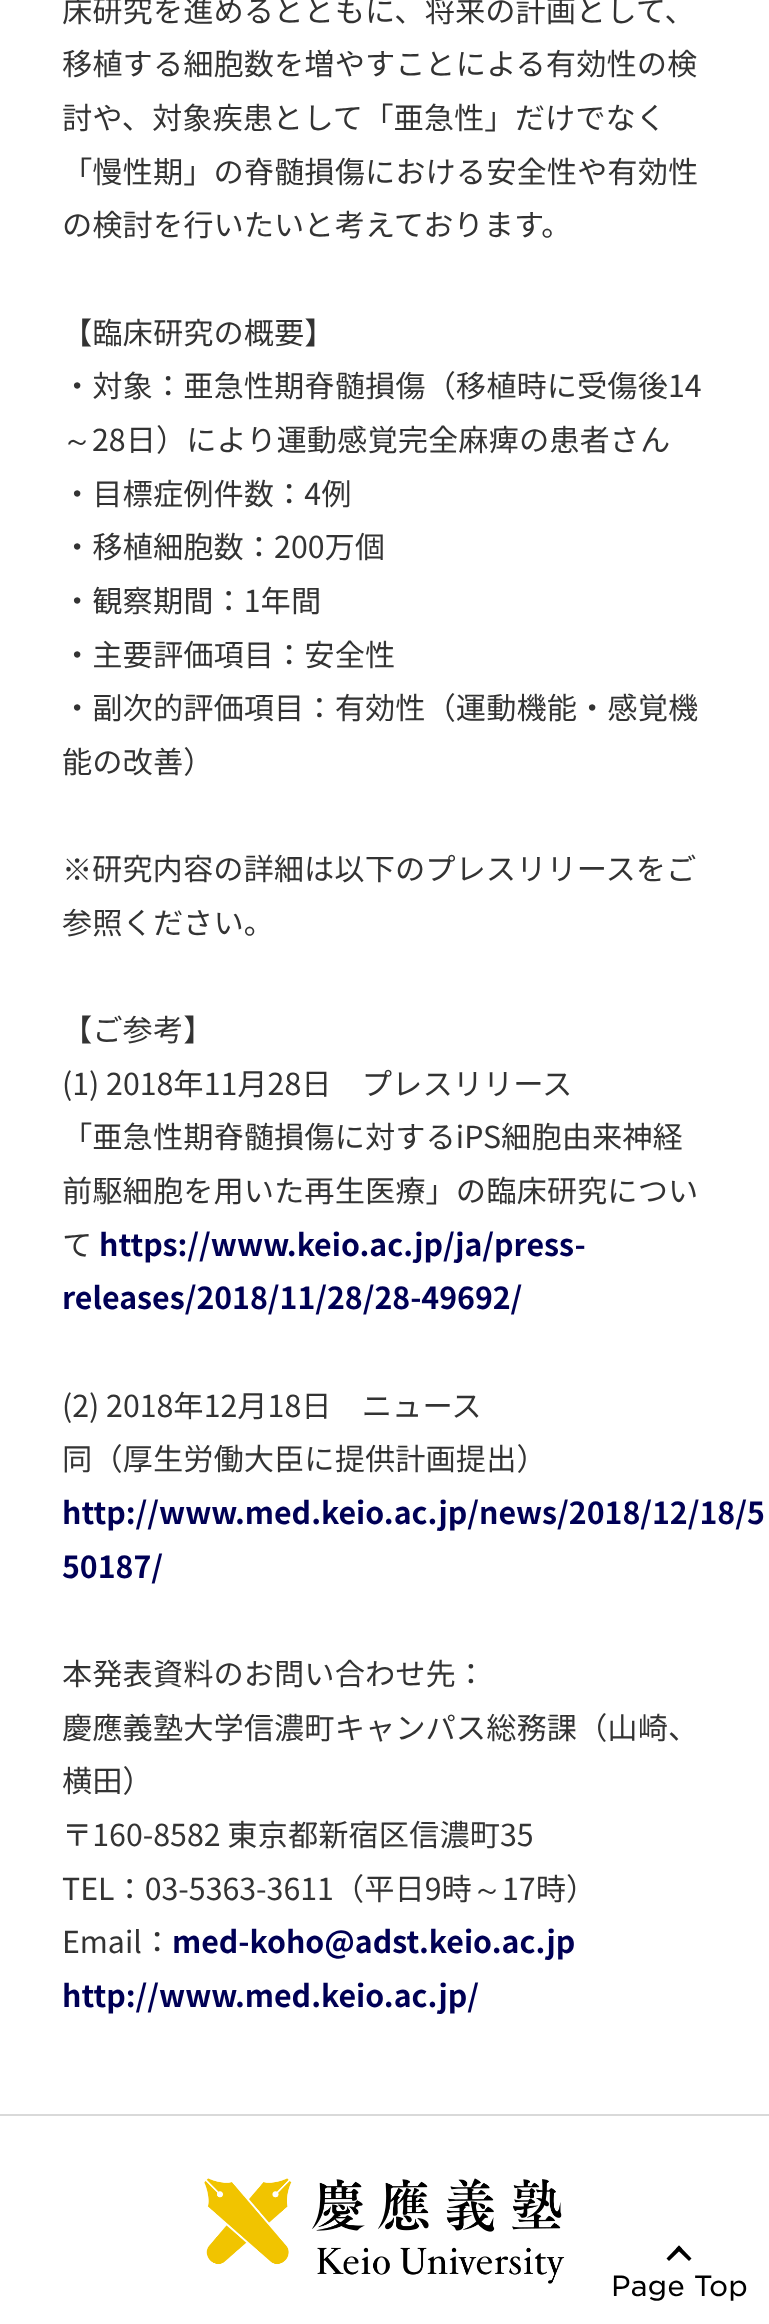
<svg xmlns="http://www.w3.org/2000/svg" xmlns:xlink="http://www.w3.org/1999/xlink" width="769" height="2324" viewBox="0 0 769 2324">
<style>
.cls-1{font:30.3px Noto Sans JP;fill:#333333}
.cls-2{font:500 30.3px WenQuanYi Zen Hei;fill:#333333}
.cls-3{font:bold 30.3px Noto Sans JP;fill:#000055}
.cls-4{font:300 28px 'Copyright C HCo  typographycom';fill:#000000}
</style>
<rect width="100%" height="100%" fill="#ffffff"/>
<rect fill="#d9d9d9" x="0" y="2114" width="769" height="2"/>
<image xlink:href="image0.png" x="204" y="2178" width="361" height="106"/>
<path fill="#000000" d="M679 2245.5L691.5 2258.5L689 2261L676 2248.5Z"/>
<path fill="#000000" d="M679 2245.5L682 2248.5L669 2261L666.5 2258.5Z"/>
<text class="cls-1"><tspan x="62" y="22">床研究を進めるとともに、将来の計画として、</tspan><tspan x="62" y="75">移植する細胞数を増やすことによる有効性の検</tspan><tspan x="62" y="129">討や、対象疾患として「亜急性」だけでなく</tspan><tspan x="62" y="183">「慢性期」の脊髄損傷における安全性や有効性</tspan><tspan x="62" y="236">の検討を行いたいと考えております。</tspan></text>
<text class="cls-1"><tspan x="62" y="344">【臨床研究の概要】</tspan><tspan x="62" y="397">・対象：亜急性期脊髄損傷（移植時に受傷後14</tspan></text>
<text class="cls-2" x="62" y="451">～</text>
<text class="cls-1" x="92" y="451">28日）により運動感覚完全麻痺の患者さん</text>
<text class="cls-1"><tspan x="62" y="505">・目標症例件数：4例</tspan><tspan x="62" y="558">・移植細胞数：200万個</tspan><tspan x="62" y="612">・観察期間：1年間</tspan><tspan x="62" y="666">・主要評価項目：安全性</tspan><tspan x="62" y="719">・副次的評価項目：有効性（運動機能・感覚機</tspan><tspan x="62" y="773">能の改善）</tspan></text>
<text class="cls-2" x="62" y="880">※</text>
<text class="cls-1" x="92" y="880">研究内容の詳細は以下のプレスリリースをご</text>
<text class="cls-1" x="62" y="934">参照ください。</text>
<text class="cls-1"><tspan x="62" y="1041">【ご参考】</tspan><tspan x="62" y="1095">(1) 2018年11月28日　プレスリリース</tspan><tspan x="62" y="1148">「亜急性期脊髄損傷に対するiPS細胞由来神経</tspan><tspan x="62" y="1202">前駆細胞を用いた再生医療」の臨床研究につい</tspan><tspan x="62" y="1256">て</tspan></text>
<text class="cls-3" x="99" y="1256">https://www.keio.ac.jp/ja/press-</text>
<text class="cls-3" x="62" y="1309">releases/2018/11/28/28-49692/</text>
<text class="cls-1"><tspan x="62" y="1417">(2) 2018年12月18日　ニュース</tspan><tspan x="62" y="1470">同（厚生労働大臣に提供計画提出）</tspan></text>
<text class="cls-3"><tspan x="62" y="1524">http://www.med.keio.ac.jp/news/2018/12/18/5</tspan><tspan x="62" y="1578">50187/</tspan></text>
<text class="cls-1"><tspan x="62" y="1685">本発表資料のお問い合わせ先：</tspan><tspan x="62" y="1739">慶應義塾大学信濃町キャンパス総務課（山崎、</tspan><tspan x="62" y="1792">横田）</tspan><tspan x="62" y="1846">〒160-8582 東京都新宿区信濃町35</tspan><tspan x="62" y="1900">TEL：03-5363-3611（平日9時</tspan></text>
<text class="cls-2" x="472" y="1900">～</text>
<text class="cls-1" x="502" y="1900">17時）</text>
<text class="cls-1" x="62" y="1953">Email：</text>
<text class="cls-3" x="172" y="1953">med-koho@adst.keio.ac.jp</text>
<text class="cls-3" x="62" y="2007">http://www.med.keio.ac.jp/</text>
<text class="cls-4" x="611" y="2296">Page Top</text>
</svg>
